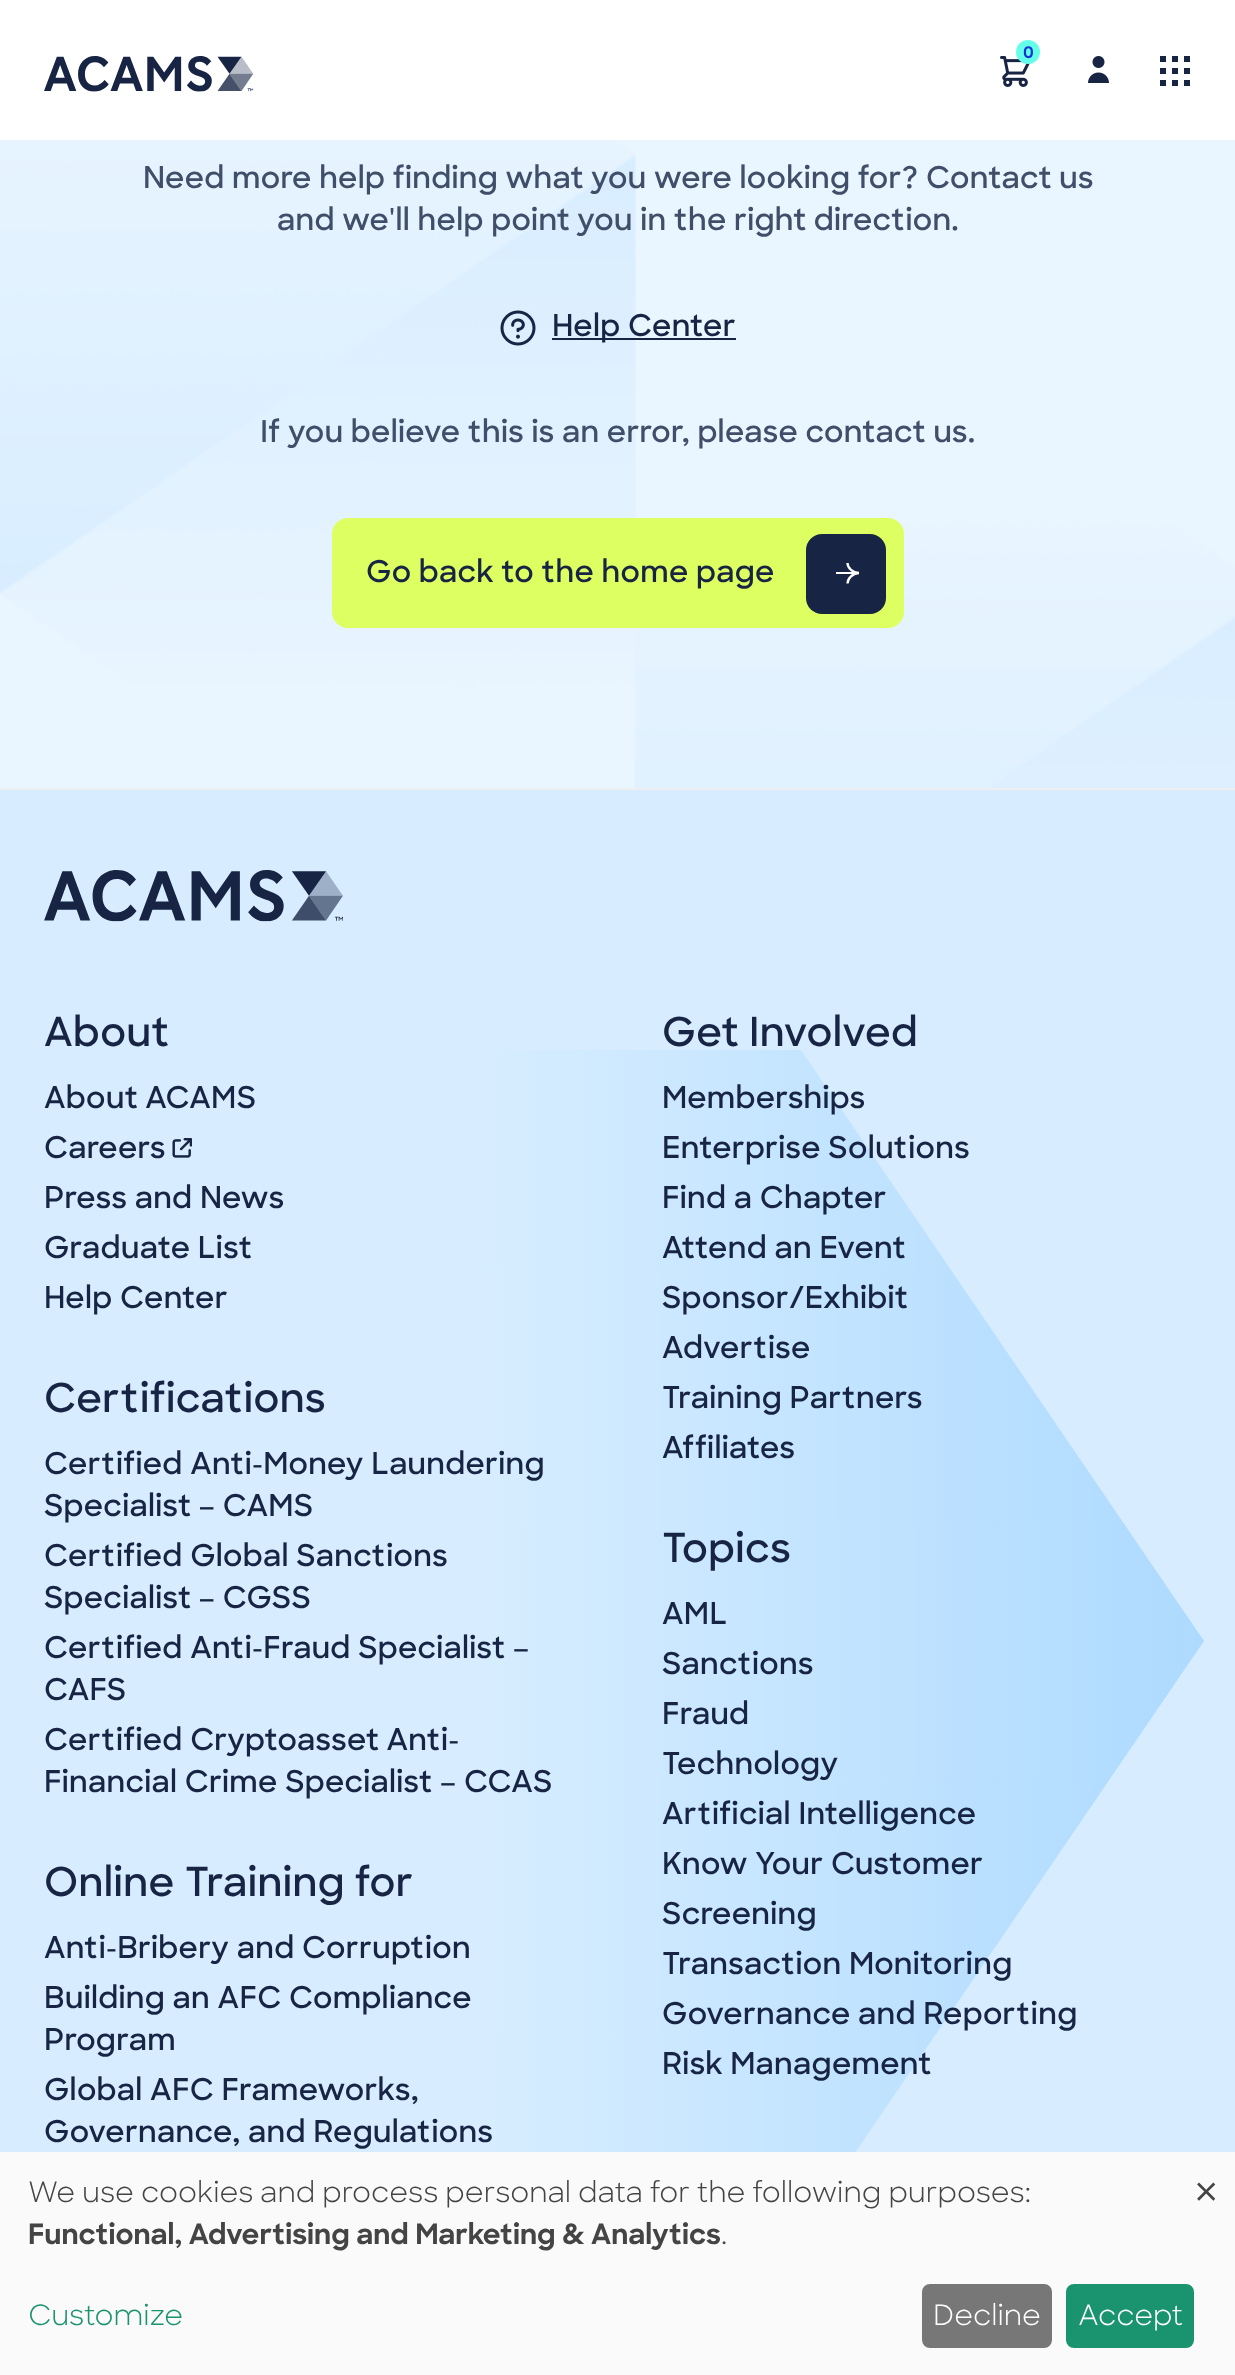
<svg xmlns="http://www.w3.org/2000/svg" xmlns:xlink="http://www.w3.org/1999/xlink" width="1235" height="2375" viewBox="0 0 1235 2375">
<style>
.cls-1{font:bold 16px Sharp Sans;fill:#1236d3}
.cls-2{font:600 30px Sharp Sans;letter-spacing:0.3px;fill:#414e69}
.cls-3{font:600 30px Sharp Sans;letter-spacing:0.3px;fill:#182444}
.cls-4{font:600 40px Sharp Sans;letter-spacing:0.4px;fill:#182444}
.cls-5{font:28px Sharp Sans;fill:#444444}
.cls-6{font:bold 28px Sharp Sans;fill:#444444}
.cls-7{font:28px Sharp Sans;fill:#1a936f}
.cls-8{font:28px Sharp Sans;fill:#ffffff}
.cls-9{font:56px Sharp Sans;fill:#444444}
</style>
<defs>
<linearGradient id="g1" gradientUnits="userSpaceOnUse" x1="68" y1="1661" x2="1204" y2="1661"><stop offset="0.36" stop-color="#d7edff"/><stop offset="1" stop-color="#addaff"/></linearGradient>
</defs>
<rect width="100%" height="100%" fill="#ffffff"/>
<image xlink:href="image0.png" x="1000" y="56" width="30" height="31"/>
<circle fill="#64ffe8" cx="1028" cy="52" r="12"/>
<image xlink:href="image1.png" x="1088" y="56" width="21" height="27"/>
<image xlink:href="image2.png" x="1160" y="56" width="30" height="30"/>
<image xlink:href="image3.png" x="44" y="56" width="210" height="36"/>
<image xlink:href="image4.png" x="0" y="140" width="1235" height="648"/>
<image xlink:href="image5.png" x="500" y="310" width="36" height="36"/>
<rect fill="#182444" x="552" y="338" width="184" height="2"/>
<rect fill="#ddff61" stroke="#ddff61" stroke-width="2" x="333" y="519" width="570" height="108" rx="15"/>
<rect fill="#182444" x="806" y="534" width="80" height="80" rx="16"/>
<path fill="none" stroke="#ffffff" stroke-width="2.3" d="M859 573C853 573 847.5 578.5 847.5 583.5M859 573C853 573 847.5 568 847.5 563"/>
<rect fill="#ffffff" x="836" y="572" width="23" height="2"/>
<rect fill="#d7edff" x="0" y="790" width="1235" height="1362"/>
<rect fill="#edeff1" x="0" y="788" width="1235" height="2"/>
<image xlink:href="image6.png" x="44" y="870" width="299" height="52"/>
<path fill="url(#g1)" d="M801 1050H-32L398 1641L-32 2232H801L1204 1641Z"/>
<image xlink:href="image7.png" x="172" y="1138" width="20" height="20"/>
<rect fill="#fafafa" x="0" y="2152" width="1235" height="223"/>
<rect fill="#777777" x="922" y="2284" width="130" height="64" rx="8"/>
<rect fill="#1a936f" x="1066" y="2284" width="128" height="64" rx="8"/>
<text class="cls-1" x="1023" y="58">0</text>
<text class="cls-2" x="143" y="188">Need more help finding what you were looking for? Contact us</text>
<text class="cls-2" x="277" y="230">and we'll help point you in the right direction.</text>
<text class="cls-3" x="552" y="336">Help Center</text>
<text class="cls-2" x="260" y="442">If you believe this is an error, please contact us.</text>
<text class="cls-3" x="366" y="582">Go back to the home page</text>
<text class="cls-4" x="44" y="1046">About</text>
<text class="cls-3"><tspan x="44" y="1108">About ACAMS</tspan><tspan x="44" y="1158">Careers</tspan><tspan x="44" y="1208">Press and News</tspan><tspan x="44" y="1258">Graduate List</tspan><tspan x="44" y="1308">Help Center</tspan></text>
<text class="cls-4" x="44" y="1412">Certifications</text>
<text class="cls-3"><tspan x="44" y="1474">Certified Anti-Money Laundering</tspan><tspan x="44" y="1516">Specialist – CAMS</tspan><tspan x="44" y="1566">Certified Global Sanctions</tspan><tspan x="44" y="1608">Specialist – CGSS</tspan><tspan x="44" y="1658">Certified Anti-Fraud Specialist –</tspan><tspan x="44" y="1700">CAFS</tspan><tspan x="44" y="1750">Certified Cryptoasset Anti-</tspan><tspan x="44" y="1792">Financial Crime Specialist – CCAS</tspan></text>
<text class="cls-4" x="44" y="1896">Online Training for</text>
<text class="cls-3"><tspan x="44" y="1958">Anti-Bribery and Corruption</tspan><tspan x="44" y="2008">Building an AFC Compliance</tspan><tspan x="44" y="2050">Program</tspan><tspan x="44" y="2100">Global AFC Frameworks,</tspan><tspan x="44" y="2142">Governance, and Regulations</tspan></text>
<text class="cls-4" x="662" y="1046">Get Involved</text>
<text class="cls-3"><tspan x="662" y="1108">Memberships</tspan><tspan x="662" y="1158">Enterprise Solutions</tspan><tspan x="662" y="1208">Find a Chapter</tspan><tspan x="662" y="1258">Attend an Event</tspan><tspan x="662" y="1308">Sponsor/Exhibit</tspan><tspan x="662" y="1358">Advertise</tspan><tspan x="662" y="1408">Training Partners</tspan><tspan x="662" y="1458">Affiliates</tspan></text>
<text class="cls-4" x="662" y="1562">Topics</text>
<text class="cls-3"><tspan x="662" y="1624">AML</tspan><tspan x="662" y="1674">Sanctions</tspan><tspan x="662" y="1724">Fraud</tspan><tspan x="662" y="1774">Technology</tspan><tspan x="662" y="1824">Artificial Intelligence</tspan><tspan x="662" y="1874">Know Your Customer</tspan><tspan x="662" y="1924">Screening</tspan><tspan x="662" y="1974">Transaction Monitoring</tspan><tspan x="662" y="2024">Governance and Reporting</tspan><tspan x="662" y="2074">Risk Management</tspan></text>
<text class="cls-5" x="28" y="2202">We use cookies and process personal data for the following purposes:</text>
<text class="cls-6" x="28" y="2244">Functional, Advertising and Marketing &amp; Analytics</text>
<text class="cls-5" x="721" y="2244">.</text>
<text class="cls-7" x="28" y="2325">Customize</text>
<text class="cls-8" x="933" y="2325">Decline</text>
<text class="cls-8" x="1078" y="2325">Accept</text>
<text class="cls-9" x="1192" y="2212">×</text>
</svg>
